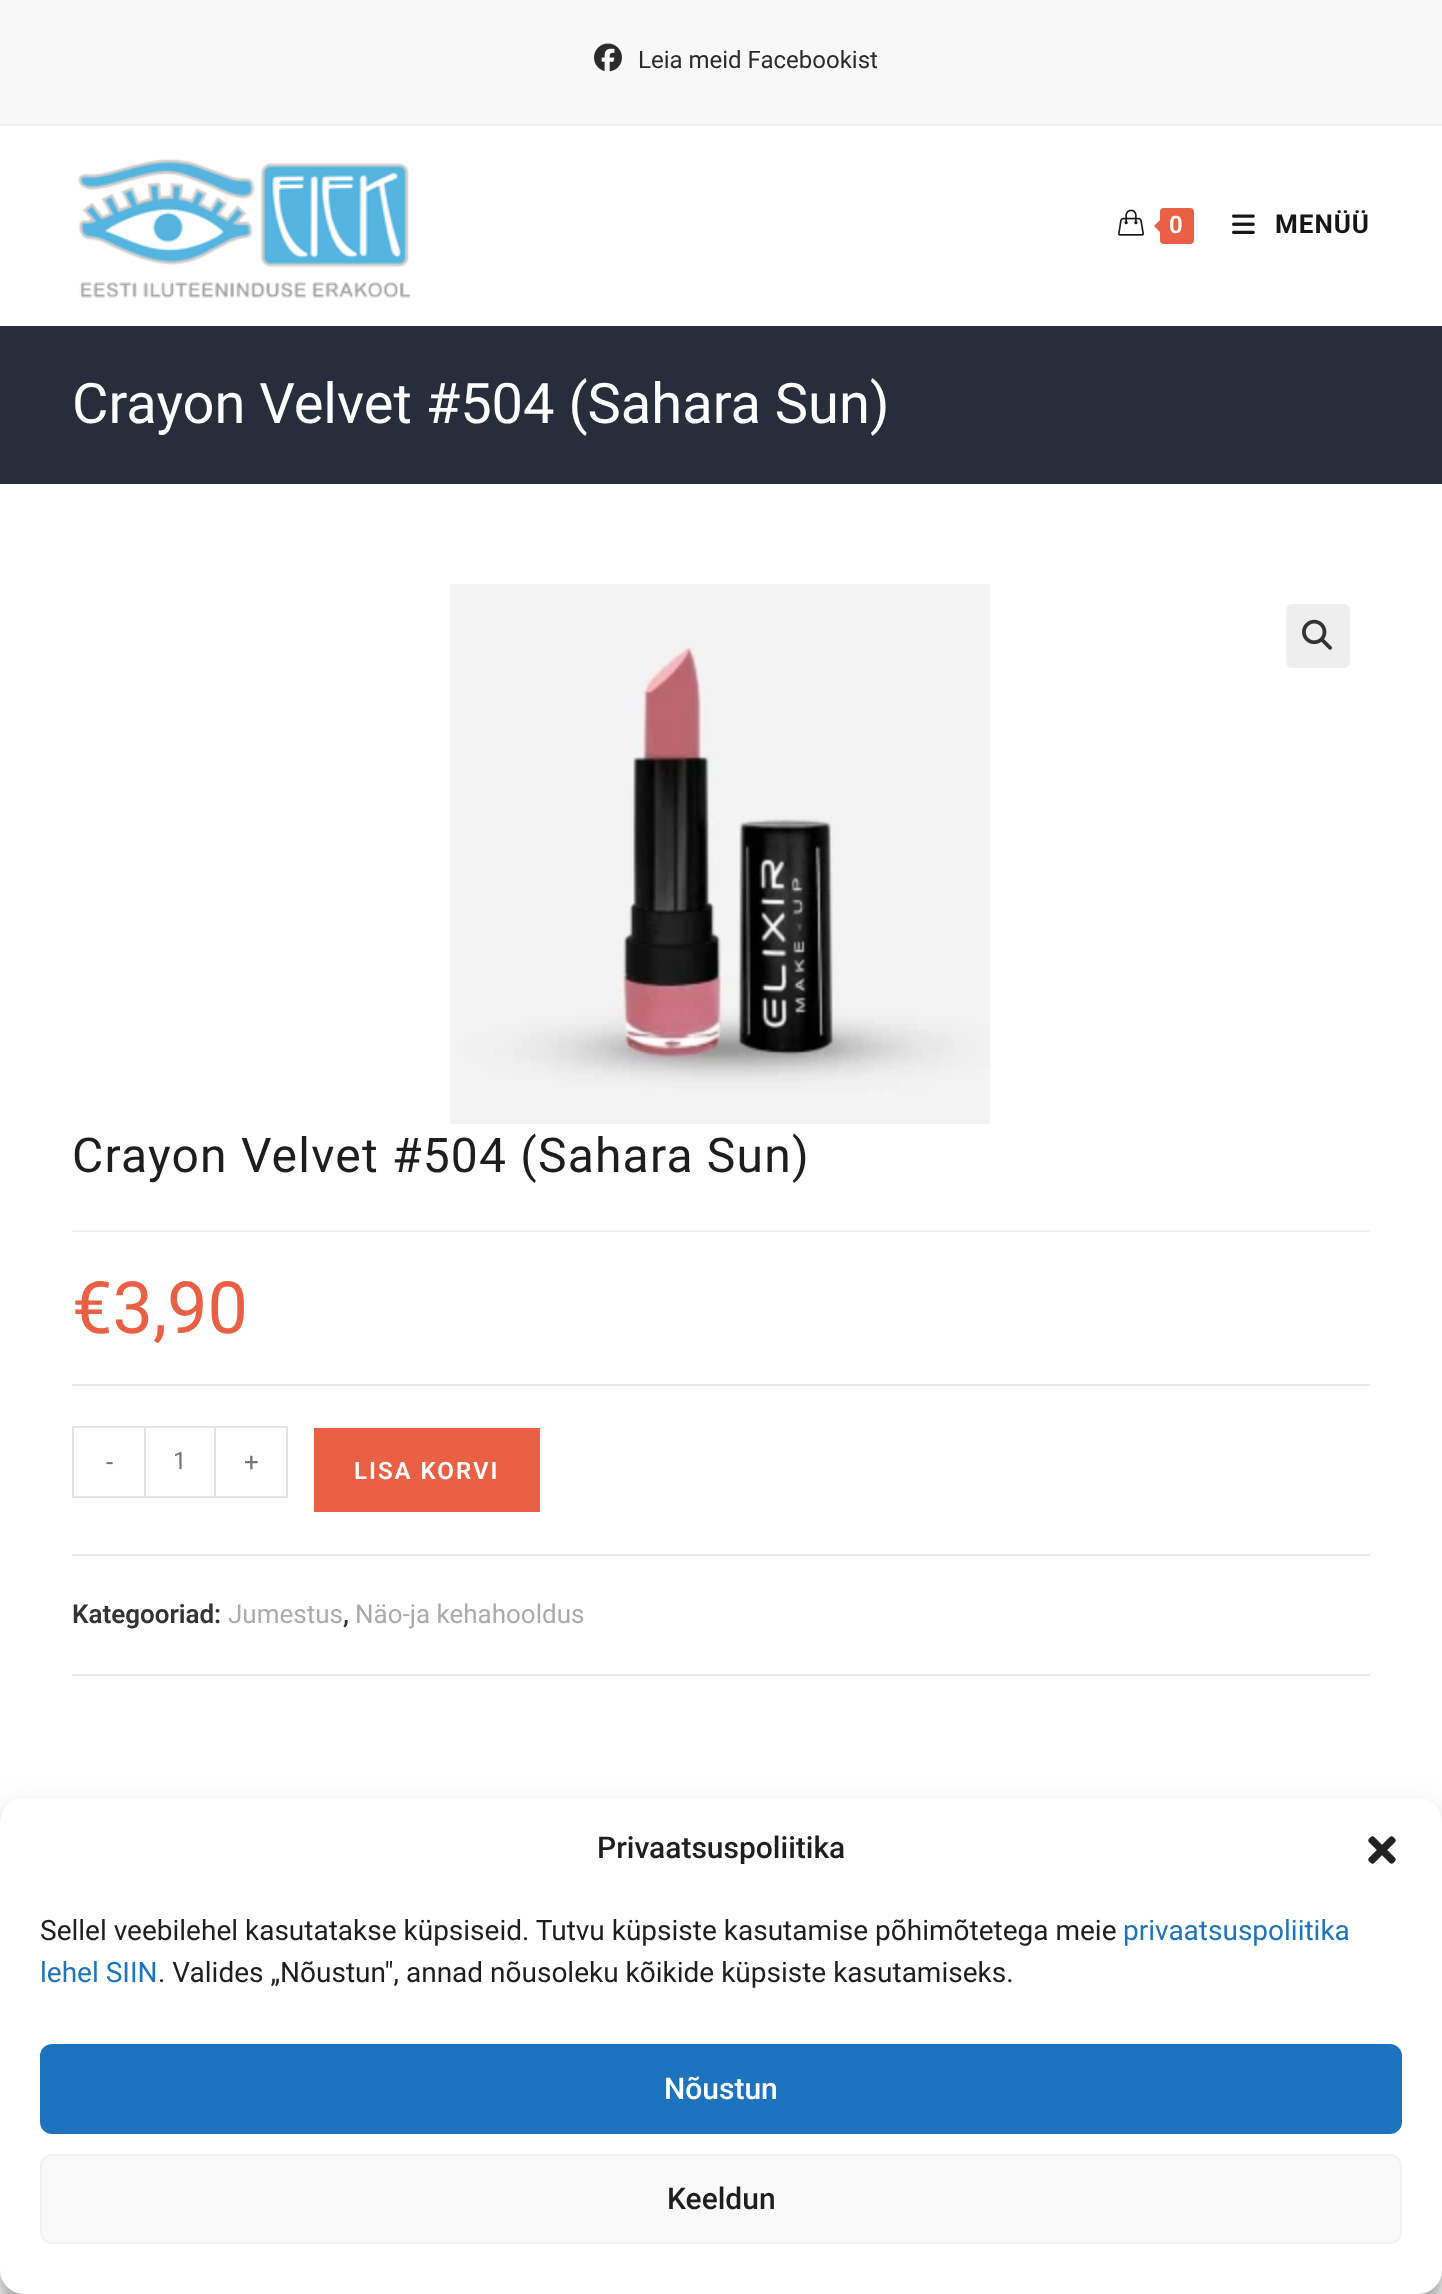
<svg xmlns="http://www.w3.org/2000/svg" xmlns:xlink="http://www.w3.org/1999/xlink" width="1442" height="2294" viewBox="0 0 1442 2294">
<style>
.cls-1{font:24px Roboto;fill:#2b2b2b}
.cls-2{font:600 24px Roboto;letter-spacing:1px;fill:#ffffff}
.cls-3{font:bold 26px Roboto;letter-spacing:1px;fill:#161616}
.cls-4{font:56px Roboto;fill:#ffffff}
.cls-5{font:48px Roboto;letter-spacing:1.2px;fill:#1e1e1e}
.cls-6{font:72px Roboto;fill:#ea6045}
.cls-7{font:26px Roboto;fill:#777777}
.cls-8{font:24px Roboto;fill:#777777}
.cls-9{font:600 24px Roboto;letter-spacing:2px;fill:#ffffff}
.cls-10{font:600 26px Roboto;fill:#333333}
.cls-11{font:26px Roboto;fill:#ababab}
.cls-12{font:500 30px Roboto;fill:#1e1e1e}
.cls-13{font:28px Roboto;fill:#1e1e1e}
.cls-14{font:28px Roboto;fill:#1e73be}
.cls-15{font:500 30px Roboto;fill:#ffffff}
</style>
<rect width="100%" height="100%" fill="#ffffff"/>
<rect fill="#f8f8f8" x="0" y="0" width="1442" height="124"/>
<rect fill="#f1f1f1" x="0" y="124" width="1442" height="2"/>
<image xlink:href="image0.png" x="594" y="43" width="28" height="29"/>
<image xlink:href="image1.png" x="78" y="158" width="333" height="140"/>
<image xlink:href="image2.png" x="1118" y="209" width="26" height="27"/>
<rect fill="#ea6045" x="1160" y="208" width="34" height="36" rx="4"/>
<path fill="#ea6045" d="M1164 216V236L1154 226Z"/>
<image xlink:href="image3.png" x="1232" y="214" width="23" height="20"/>
<rect fill="#272d3b" x="0" y="326" width="1442" height="158"/>
<image xlink:href="image4.png" x="450" y="584" width="540" height="540"/>
<rect fill="#eeeeee" x="1286" y="604" width="64" height="64" rx="6"/>
<image xlink:href="image5.png" x="1302" y="619" width="30" height="31"/>
<rect fill="#f1f1f1" x="72" y="1230" width="1298" height="2"/>
<rect fill="#eaeaea" x="72" y="1384" width="1298" height="2"/>
<rect fill="#eaeaea" x="72" y="1554" width="1298" height="2"/>
<rect fill="#e4e4e4" x="72" y="1426" width="72" height="2"/>
<rect fill="#e4e4e4" x="72" y="1496" width="72" height="2"/>
<rect fill="#e4e4e4" x="72" y="1426" width="2" height="72"/>
<rect fill="none" stroke="#e4e4e4" stroke-width="2" x="145" y="1427" width="70" height="70"/>
<rect fill="#e4e4e4" x="216" y="1426" width="72" height="2"/>
<rect fill="#e4e4e4" x="286" y="1426" width="2" height="72"/>
<rect fill="#e4e4e4" x="216" y="1496" width="72" height="2"/>
<rect fill="#ea6045" x="314" y="1428" width="226" height="84"/>
<rect fill="#eaeaea" x="72" y="1674" width="1298" height="2"/>
<rect fill="#000000" fill-opacity="0.23" filter="blur(6px)" x="0" y="1810" width="1442" height="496" rx="24"/>
<rect fill="#000000" fill-opacity="0.19" filter="blur(20px)" x="0" y="1818" width="1442" height="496" rx="24"/>
<rect fill="#ffffff" x="0" y="1798" width="1442" height="496" rx="24"/>
<image xlink:href="image6.png" x="1368" y="1836" width="28" height="28"/>
<rect fill="#1e73be" stroke="#1e73be" stroke-width="2" x="41" y="2045" width="1360" height="88" rx="11"/>
<rect fill="#f9f9f9" stroke="#f2f2f2" stroke-width="2" x="41" y="2155" width="1360" height="88" rx="11"/>
<text class="cls-1" x="638" y="68">Leia meid Facebookist</text>
<text class="cls-2" x="1169" y="233">0</text>
<text class="cls-3" x="1275" y="233">MENÜÜ</text>
<text class="cls-4" x="72" y="423">Crayon Velvet #504 (Sahara Sun)</text>
<text class="cls-5" x="72" y="1172">Crayon Velvet #504 (Sahara Sun)</text>
<text class="cls-6" x="72" y="1333">€3,90</text>
<text class="cls-7" x="106" y="1471">-</text>
<text class="cls-8" x="173" y="1469">1</text>
<text class="cls-7" x="244" y="1471">+</text>
<text class="cls-9" x="354" y="1479">LISA KORVI</text>
<text class="cls-10" x="72" y="1623">Kategooriad:</text>
<text class="cls-11" x="228" y="1623">Jumestus</text>
<text class="cls-10" x="343" y="1623">,</text>
<text class="cls-11" x="355" y="1623">Näo-ja kehahooldus</text>
<text class="cls-12" x="597" y="1858">Privaatsuspoliitika</text>
<text class="cls-13" x="40" y="1940">Sellel veebilehel kasutatakse küpsiseid. Tutvu küpsiste kasutamise põhimõtetega meie</text>
<text class="cls-14" x="1123" y="1940">privaatsuspoliitika</text>
<text class="cls-14" x="40" y="1982">lehel SIIN</text>
<text class="cls-13" x="158" y="1982">. Valides „Nõustun", annad nõusoleku kõikide küpsiste kasutamiseks.</text>
<text class="cls-15" x="664" y="2099">Nõustun</text>
<text class="cls-12" x="667" y="2209">Keeldun</text>
</svg>
